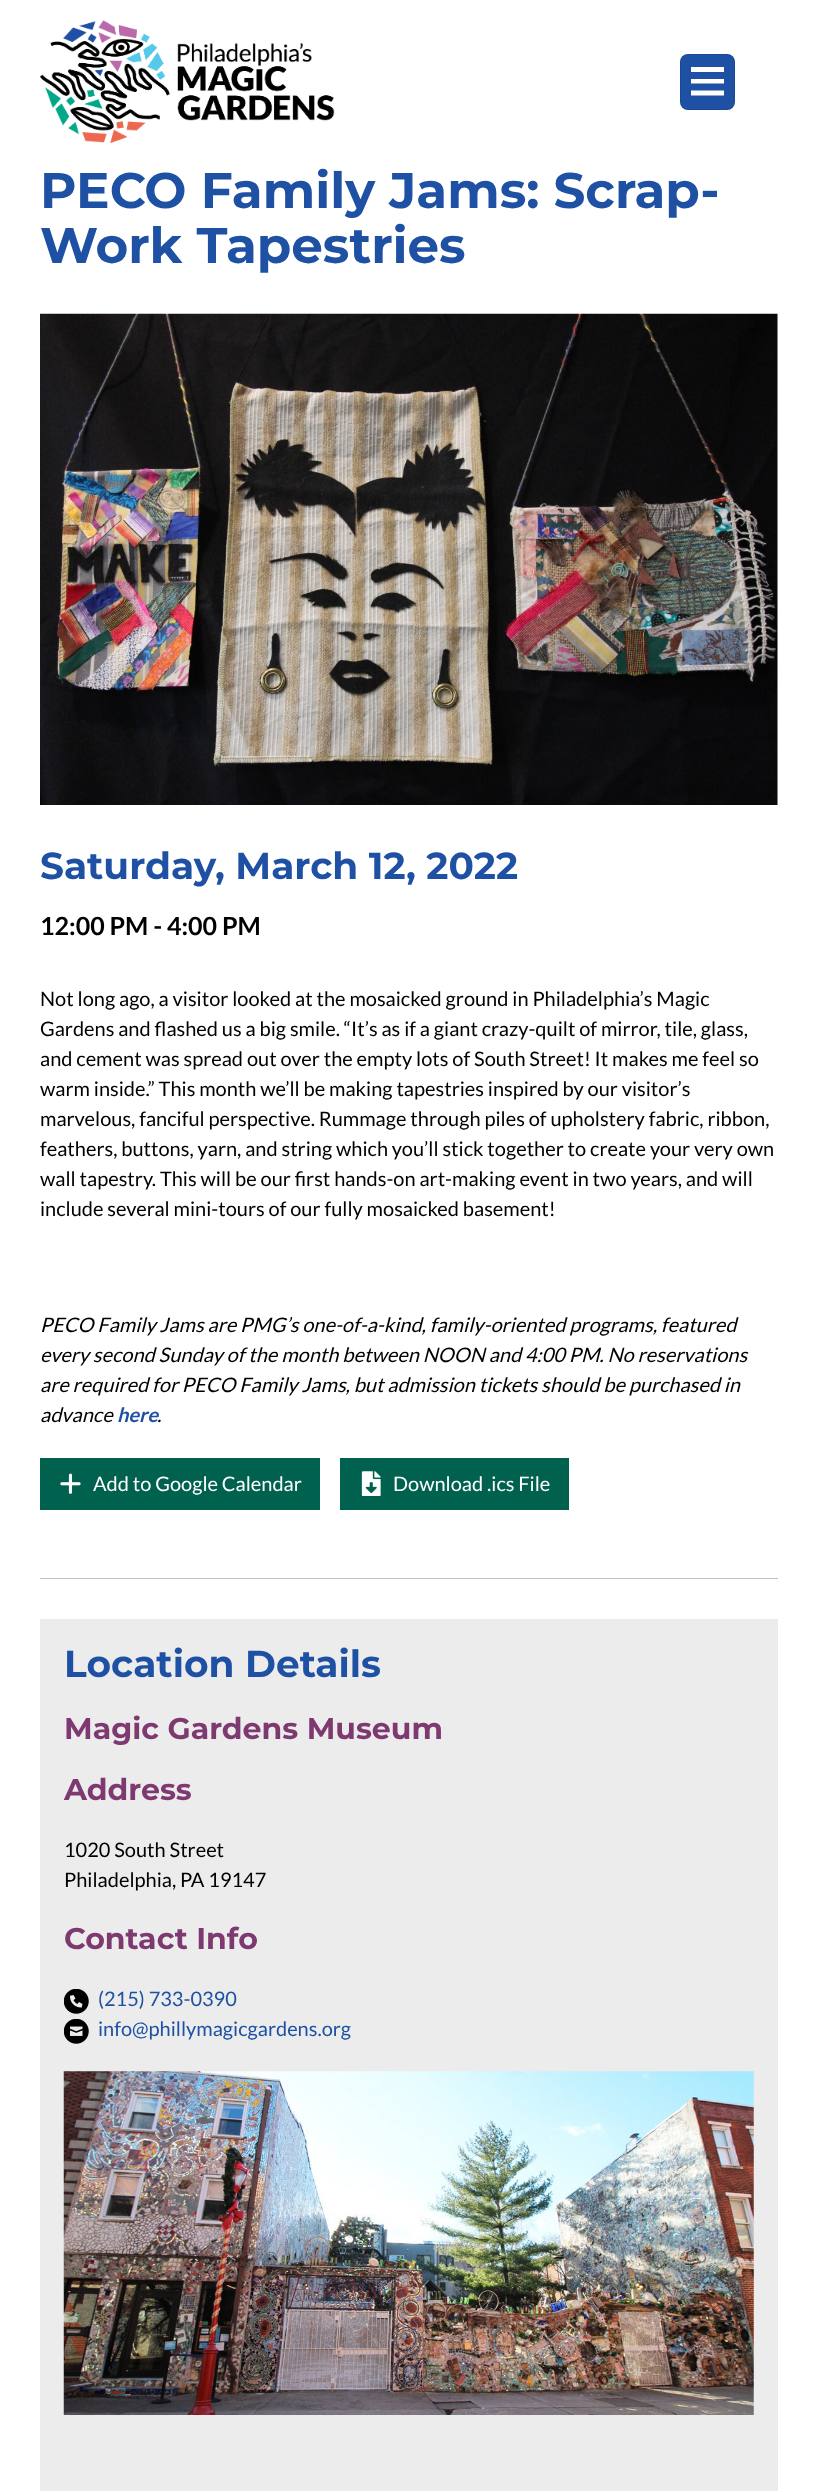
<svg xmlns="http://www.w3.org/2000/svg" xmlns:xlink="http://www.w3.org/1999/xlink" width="817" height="2491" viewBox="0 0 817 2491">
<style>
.cls-1{font:bold 50px Montserrat;fill:#1e51a4}
.cls-2{font:bold 37.5px Montserrat;fill:#1e51a4}
.cls-3{font:bold 25px Lato;fill:#000000}
.cls-4{font:20px Lato;fill:#000000}
.cls-5{font:italic 20px Lato;fill:#000000}
.cls-6{font:italic bold 20px Lato;fill:#1e51a4}
.cls-7{font:20px Lato;fill:#ffffff}
.cls-8{font:bold 30px Montserrat;fill:#7e3a70}
.cls-9{font:20px Lato;fill:#1e51a4}
</style>
<rect width="100%" height="100%" fill="#ffffff"/>
<image xlink:href="image0.png" x="40" y="20" width="295" height="123"/>
<rect fill="#1e51a4" x="680" y="54" width="55" height="56" rx="8"/>
<rect fill="none" stroke="#000000" stroke-opacity="0.1" x="680.5" y="54.5" width="54" height="55" rx="7.5"/>
<path fill="#ffffff" d="M691 67H724V72H691ZM691 79H724V83.5H691ZM724 90.5V95.5H691V90.5Z"/>
<image xlink:href="image1.png" x="40" y="313" width="738" height="492"/>
<rect fill="#00614f" x="40" y="1458" width="280" height="52"/>
<image xlink:href="image2.png" x="60" y="1473" width="21" height="21"/>
<rect fill="#00614f" x="340" y="1458" width="229" height="52"/>
<image xlink:href="image3.png" x="361" y="1471" width="20" height="25"/>
<rect fill="#bfbfbf" x="40" y="1578" width="738" height="1"/>
<rect fill="#ececec" x="40" y="1619" width="738" height="872"/>
<image xlink:href="image4.png" x="64" y="1989" width="25" height="25"/>
<image xlink:href="image5.png" x="64" y="2019" width="25" height="25"/>
<image xlink:href="image6.png" x="63" y="2071" width="691" height="344"/>
<text class="cls-1"><tspan x="40" y="208">PECO Family Jams: Scrap-</tspan><tspan x="40" y="263">Work Tapestries</tspan></text>
<text class="cls-2" x="40" y="879">Saturday, March 12, 2022</text>
<text class="cls-3" x="40" y="935">12:00 PM - 4:00 PM</text>
<text class="cls-4"><tspan x="40" y="1006">Not long ago, a visitor looked at the mosaicked ground in Philadelphia’s Magic</tspan><tspan x="40" y="1036">Gardens and flashed us a big smile. “It’s as if a giant crazy-quilt of mirror, tile, glass,</tspan><tspan x="40" y="1066">and cement was spread out over the empty lots of South Street! It makes me feel so</tspan><tspan x="40" y="1096">warm inside.” This month we’ll be making tapestries inspired by our visitor’s</tspan><tspan x="40" y="1126">marvelous, fanciful perspective. Rummage through piles of upholstery fabric, ribbon,</tspan><tspan x="40" y="1156">feathers, buttons, yarn, and string which you’ll stick together to create your very own</tspan><tspan x="40" y="1186">wall tapestry. This will be our first hands-on art-making event in two years, and will</tspan><tspan x="40" y="1216">include several mini-tours of our fully mosaicked basement!</tspan></text>
<text class="cls-5"><tspan x="40" y="1332">PECO Family Jams are PMG’s one-of-a-kind, family-oriented programs, featured</tspan><tspan x="40" y="1362">every second Sunday of the month between NOON and 4:00 PM. No reservations</tspan><tspan x="40" y="1392">are required for PECO Family Jams, but admission tickets should be purchased in</tspan><tspan x="40" y="1422">advance</tspan></text>
<text class="cls-6" x="117" y="1422">here</text>
<text class="cls-5" x="157" y="1422">.</text>
<text class="cls-7" x="93" y="1491">Add to Google Calendar</text>
<text class="cls-7" x="393" y="1491">Download .ics File</text>
<text class="cls-2" x="64" y="1677">Location Details</text>
<text class="cls-8" x="64" y="1739">Magic Gardens Museum</text>
<text class="cls-8" x="64" y="1800">Address</text>
<text class="cls-4"><tspan x="64" y="1857">1020 South Street</tspan><tspan x="64" y="1887">Philadelphia, PA 19147</tspan></text>
<text class="cls-8" x="64" y="1949">Contact Info</text>
<text class="cls-9"><tspan x="98" y="2006">(215) 733-0390</tspan><tspan x="98" y="2036">info@phillymagicgardens.org</tspan></text>
</svg>
